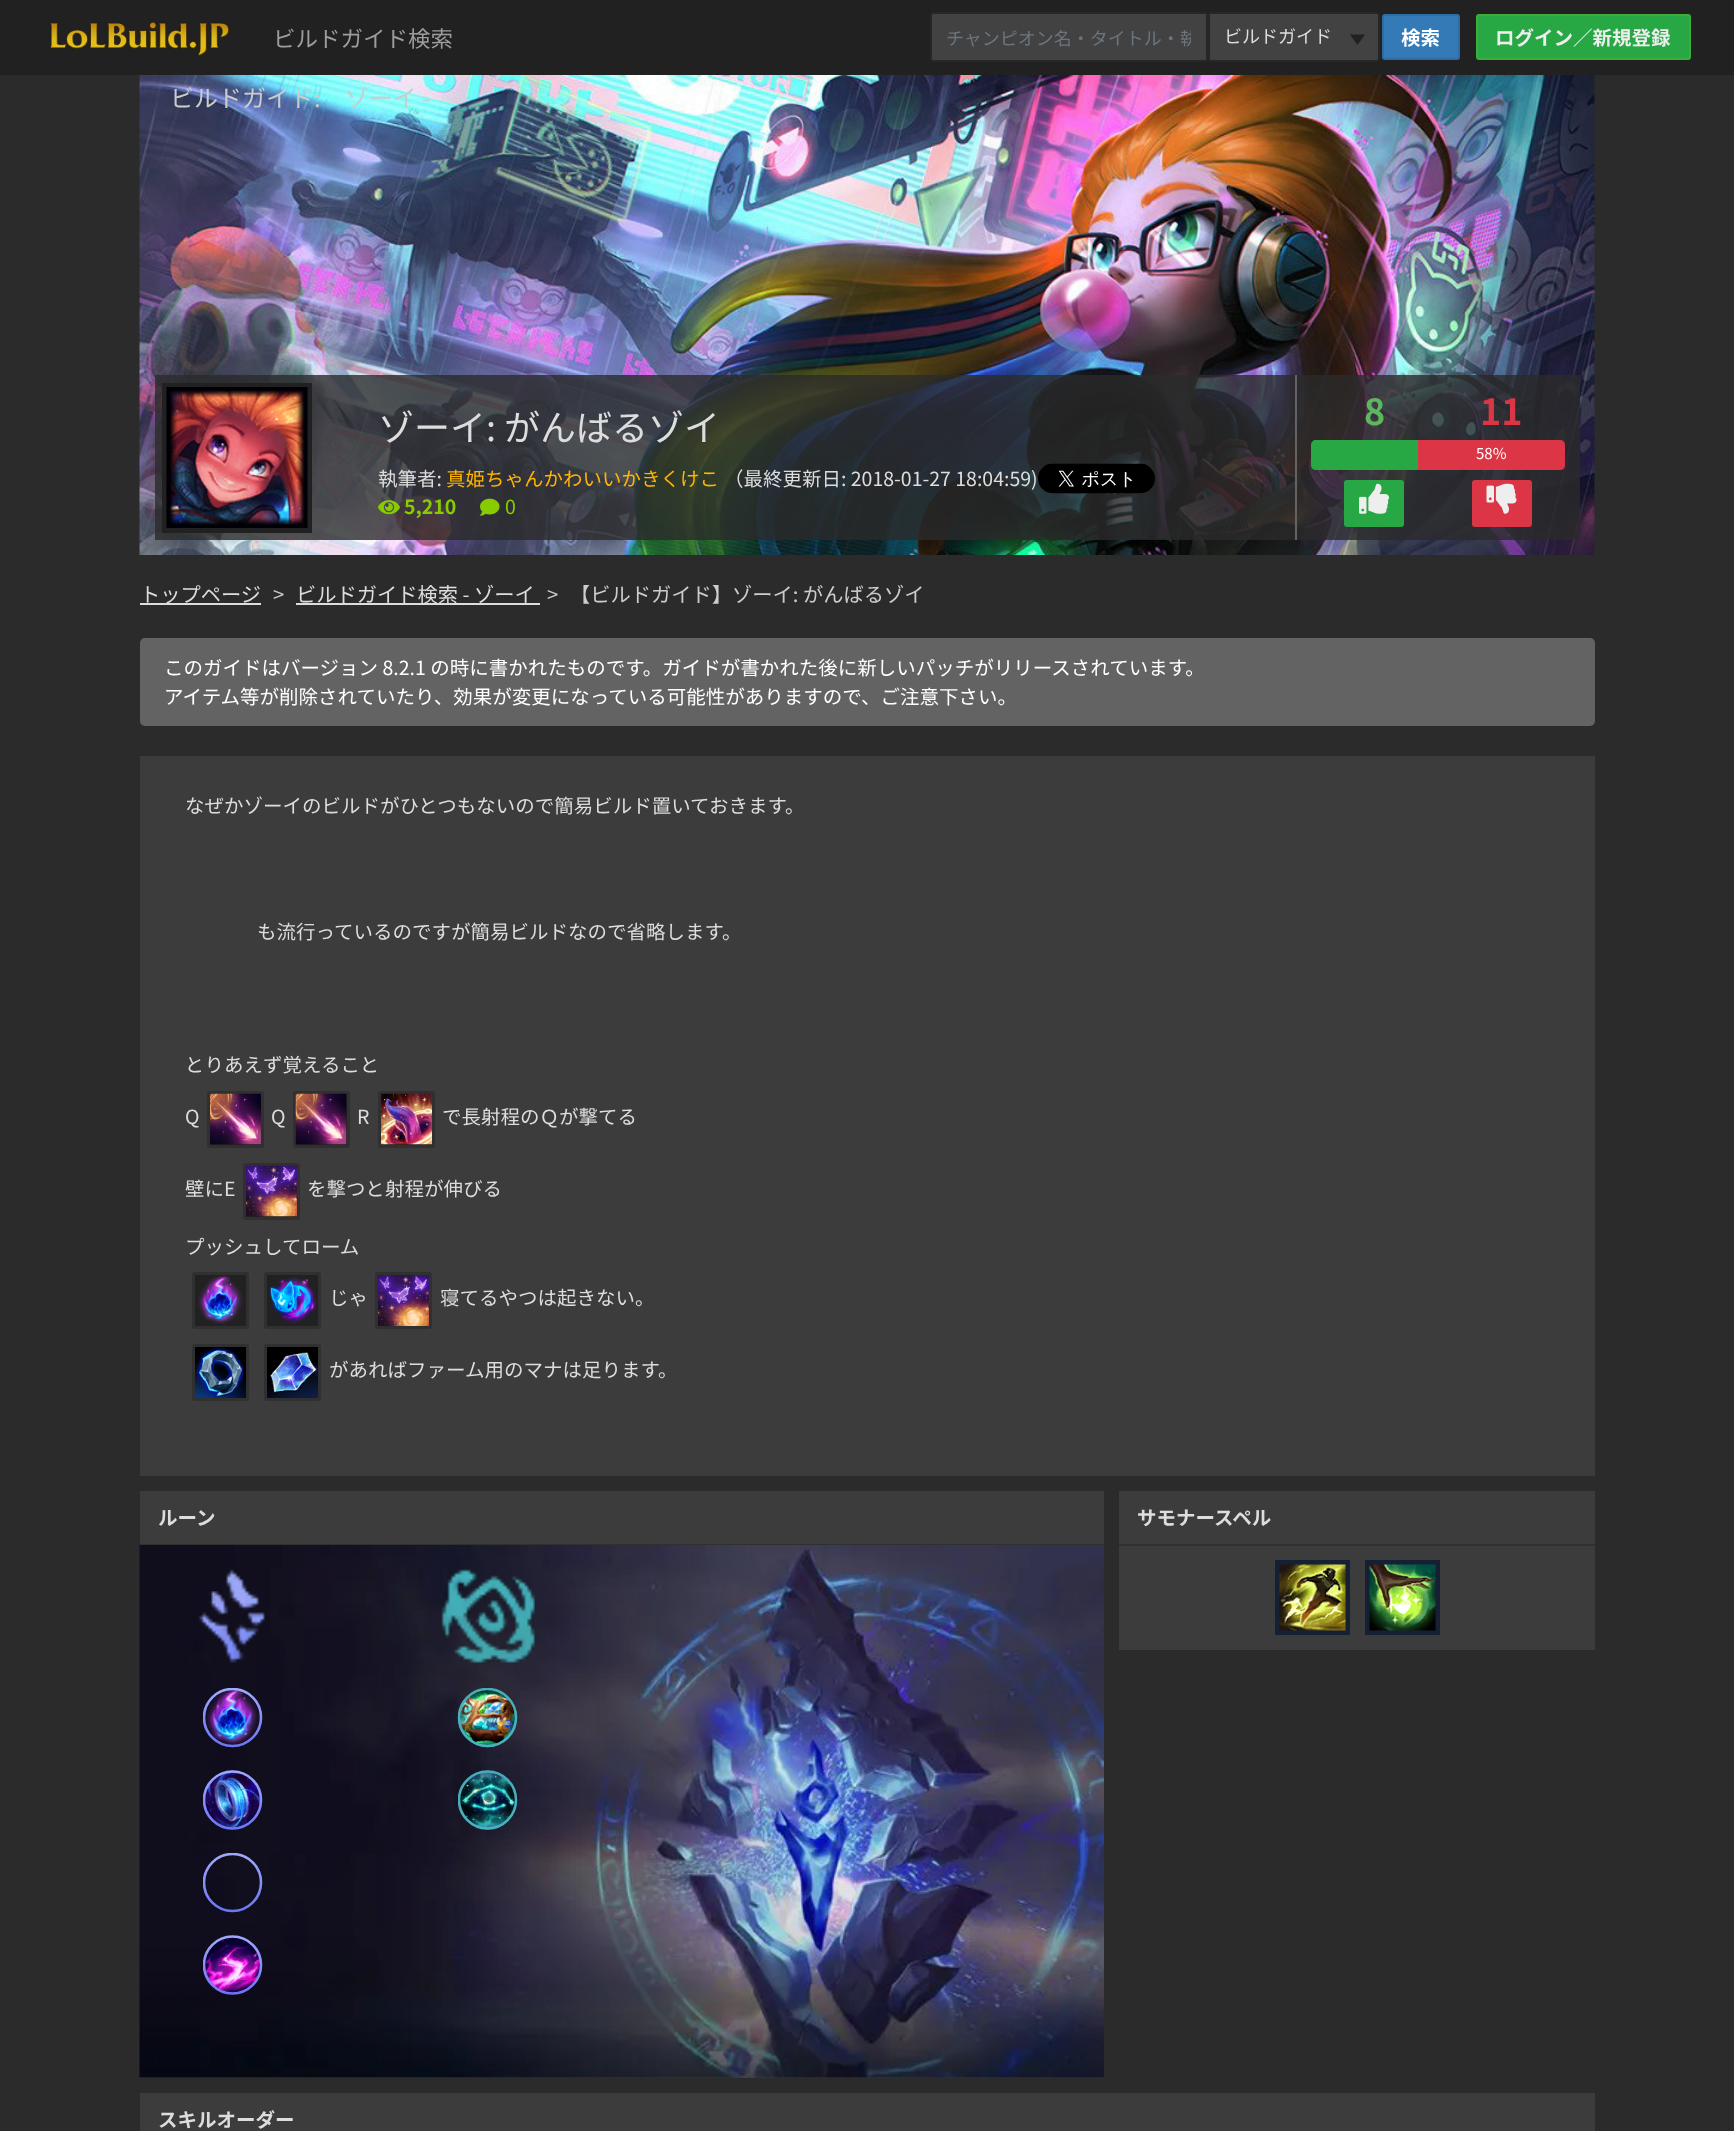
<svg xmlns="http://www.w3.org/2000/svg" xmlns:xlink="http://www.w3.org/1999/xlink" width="1734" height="2131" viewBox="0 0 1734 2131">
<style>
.cls-1{font:22.5px Noto Sans JP;fill:#9d9d9d}
.cls-2{font:18px Noto Sans JP;fill:#6c757d}
.cls-3{font:18px Noto Sans JP;fill:#dddddd}
.cls-4{font:bold 19.5px Noto Sans JP;fill:#ffffff}
.cls-5{font:bold 19.5px Noto Sans JP;fill:#eeeeee}
.cls-6{font:24px Noto Sans JP;fill:#cccccc}
.cls-7{font:36px Noto Sans JP;fill:#dddddd}
.cls-8{font:19.5px Noto Sans JP;fill:#dddddd}
.cls-9{font:19.5px Noto Sans JP;fill:#ffb400}
.cls-10{font:bold 19.5px Noto Sans JP;fill:#88cc00}
.cls-11{font:19.5px Noto Sans JP;fill:#88cc00}
.cls-12{font:bold 36px Noto Sans JP;fill:#5cb85c}
.cls-13{font:bold 36px Noto Sans JP;fill:#dc3545}
.cls-14{font:15px Noto Sans JP;fill:#ffffff}
.cls-15{font:20.25px Noto Sans JP;fill:#dddddd}
.cls-16{font:20.25px Noto Sans JP;fill:#cccccc}
.cls-17{font:19.5px Noto Sans JP;fill:#ffffff}
.cls-18{font:bold 19.5px Noto Sans JP;fill:#dddddd}
</style>
<defs>
<clipPath id="clip1"><rect x="203" y="1688" width="60" height="60"/></clipPath>
<linearGradient id="g1" gradientUnits="userSpaceOnUse" x1="204" y1="1689" x2="204" y2="1746"><stop offset="0" stop-color="#9faafc"/><stop offset="1" stop-color="#6c75f5"/></linearGradient>
<clipPath id="clip2"><rect x="203" y="1770" width="60" height="60"/></clipPath>
<linearGradient id="g2" gradientUnits="userSpaceOnUse" x1="204" y1="1771" x2="204" y2="1829"><stop offset="0" stop-color="#9faafc"/><stop offset="1" stop-color="#6c75f5"/></linearGradient>
<clipPath id="clip3"><rect x="203" y="1853" width="60" height="60"/></clipPath>
<linearGradient id="g3" gradientUnits="userSpaceOnUse" x1="204" y1="1854" x2="204" y2="1911"><stop offset="0" stop-color="#9faafc"/><stop offset="1" stop-color="#6c75f5"/></linearGradient>
<clipPath id="clip4"><rect x="203" y="1935" width="60" height="60"/></clipPath>
<linearGradient id="g4" gradientUnits="userSpaceOnUse" x1="204" y1="1936" x2="204" y2="1994"><stop offset="0" stop-color="#9faafc"/><stop offset="1" stop-color="#6c75f5"/></linearGradient>
<clipPath id="clip5"><rect x="458" y="1688" width="60" height="60"/></clipPath>
<linearGradient id="g5" gradientUnits="userSpaceOnUse" x1="459" y1="1689" x2="459" y2="1746"><stop offset="0" stop-color="#49aab9"/><stop offset="1" stop-color="#48b4be"/></linearGradient>
<clipPath id="clip6"><rect x="458" y="1770" width="60" height="60"/></clipPath>
<linearGradient id="g6" gradientUnits="userSpaceOnUse" x1="459" y1="1771" x2="459" y2="1829"><stop offset="0" stop-color="#49aab9"/><stop offset="1" stop-color="#48b4be"/></linearGradient>
<clipPath id="clip7"><rect x="947" y="24" width="244" height="27"/></clipPath>
</defs>
<rect width="100%" height="100%" fill="#2b2b2b"/>
<rect fill="#212121" x="0" y="0" width="1734" height="75"/>
<image xlink:href="image0.png" x="49" y="22" width="181" height="35"/>
<rect fill="#424242" stroke="#272727" stroke-width="2" x="931" y="13" width="276" height="48" rx="2"/>
<rect fill="#424242" x="1210" y="14" width="168" height="46"/>
<rect fill="none" stroke="#272727" stroke-width="2" x="1209" y="13" width="170" height="48" rx="2"/>
<path fill="#212121" d="M1350 34.5H1365L1357.5 45Z"/>
<rect fill="#337ab7" stroke="#2e6da4" stroke-width="2" x="1383" y="15" width="76" height="44" rx="2"/>
<rect fill="#28a745" stroke="#3cae3c" stroke-width="2" x="1477" y="15" width="213" height="44" rx="2"/>
<image xlink:href="image1.png" x="139" y="75" width="1456" height="480"/>
<rect fill="#2a2a2a" fill-opacity="0.8" x="155" y="375" width="1425" height="165"/>
<rect fill="none" stroke="#212121" stroke-width="5" x="164.5" y="385.5" width="145" height="145"/>
<image xlink:href="image2.png" x="166" y="387" width="142" height="141"/>
<image xlink:href="image3.png" x="378" y="500" width="22" height="15"/>
<image xlink:href="image4.png" x="480" y="498" width="20" height="18"/>
<image xlink:href="image5.png" x="1038" y="463" width="117" height="31"/>
<rect fill="#636363" x="1295" y="375" width="2" height="165"/>
<path fill="#28a745" d="M1316 440H1418V470H1316C1313 470 1311 468 1311 465V445C1311 442 1313 440 1316 440Z"/>
<path fill="#dc3545" d="M1418 440H1560C1563 440 1565 442 1565 445V465C1565 468 1563 470 1560 470H1418Z"/>
<rect fill="#28a745" x="1344" y="480" width="60" height="47" rx="3"/>
<image xlink:href="image6.png" x="1359" y="483" width="30" height="31"/>
<rect fill="#dc3545" x="1472" y="480" width="60" height="47" rx="3"/>
<image xlink:href="image7.png" x="1486" y="483" width="31" height="31"/>
<rect fill="#dddddd" x="140" y="603" width="121" height="2"/>
<rect fill="#dddddd" x="296" y="603" width="244" height="2"/>
<rect fill="#636363" x="140" y="638" width="1455" height="88" rx="5"/>
<rect fill="#3c3c3c" x="140" y="756" width="1455" height="720"/>
<rect fill="#212121" stroke="#303030" stroke-width="3" x="208.5" y="1092.5" width="54" height="54" rx="1.5"/>
<rect fill="#212121" stroke="#303030" stroke-width="3" x="294.5" y="1092.5" width="54" height="54" rx="1.5"/>
<rect fill="#212121" stroke="#303030" stroke-width="3" x="379.5" y="1092.5" width="54" height="54" rx="1.5"/>
<image xlink:href="image8.png" x="210" y="1093" width="51" height="52"/>
<image xlink:href="image9.png" x="295" y="1093" width="52" height="52"/>
<image xlink:href="image10.png" x="381" y="1093" width="51" height="52"/>
<rect fill="#212121" stroke="#303030" stroke-width="3" x="244.5" y="1164.5" width="54" height="54" rx="1.5"/>
<image xlink:href="image11.png" x="246" y="1165" width="51" height="52"/>
<rect fill="#212121" stroke="#303030" stroke-width="3" x="193.5" y="1273.5" width="54" height="54" rx="1.5"/>
<rect fill="#212121" stroke="#303030" stroke-width="3" x="265.5" y="1273.5" width="54" height="54" rx="1.5"/>
<rect fill="none" stroke="#303030" stroke-width="3" x="376.5" y="1273.5" width="54" height="54" rx="1.5"/>
<image xlink:href="image12.png" x="198" y="1276" width="45" height="48"/>
<image xlink:href="image13.png" x="269" y="1277" width="49" height="47"/>
<image xlink:href="image14.png" x="378" y="1275" width="51" height="51"/>
<rect fill="none" stroke="#303030" stroke-width="3" x="193.5" y="1345.5" width="54" height="54" rx="1.5"/>
<rect fill="none" stroke="#303030" stroke-width="3" x="265.5" y="1345.5" width="54" height="54" rx="1.5"/>
<image xlink:href="image15.png" x="195" y="1347" width="51" height="51"/>
<image xlink:href="image16.png" x="267" y="1347" width="51" height="51"/>
<rect fill="#3c3c3c" x="140" y="1491" width="964" height="587"/>
<rect fill="#303030" x="140" y="1544" width="964" height="1"/>
<image xlink:href="image17.png" x="139" y="1545" width="965" height="533"/>
<image xlink:href="image18.png" x="198" y="1569" width="67" height="94"/>
<image xlink:href="image19.png" x="206" y="1688" width="53" height="57"/>
<g clip-path="url(#clip1)">
<circle fill="none" stroke="url(#g1)" stroke-width="2.6" cx="232.5" cy="1717.5" r="28.5"/>
</g>
<image xlink:href="image20.png" x="202" y="1770" width="61" height="60"/>
<g clip-path="url(#clip2)">
<circle fill="none" stroke="url(#g2)" stroke-width="2.6" cx="232.5" cy="1800" r="28.5"/>
</g>
<g clip-path="url(#clip3)">
<circle fill="none" stroke="url(#g3)" stroke-width="2.6" cx="232.5" cy="1882.5" r="28.5"/>
</g>
<image xlink:href="image21.png" x="202" y="1935" width="61" height="60"/>
<g clip-path="url(#clip4)">
<circle fill="none" stroke="url(#g4)" stroke-width="2.6" cx="232.5" cy="1965" r="28.5"/>
</g>
<image xlink:href="image22.png" x="441" y="1569" width="94" height="94"/>
<image xlink:href="image23.png" x="457" y="1687" width="61" height="61"/>
<g clip-path="url(#clip5)">
<circle fill="none" stroke="url(#g5)" stroke-width="2.6" cx="487.5" cy="1717.5" r="28.5"/>
</g>
<image xlink:href="image24.png" x="457" y="1770" width="61" height="60"/>
<g clip-path="url(#clip6)">
<circle fill="none" stroke="url(#g6)" stroke-width="2.6" cx="487.5" cy="1800" r="28.5"/>
</g>
<rect fill="#3c3c3c" x="1119" y="1491" width="476" height="159"/>
<rect fill="#303030" x="1119" y="1544" width="476" height="2"/>
<rect fill="none" stroke="#152034" stroke-width="5" x="1277.5" y="1562.5" width="70" height="70"/>
<image xlink:href="image25.png" x="1279" y="1564" width="67" height="67"/>
<rect fill="none" stroke="#152034" stroke-width="5" x="1367.5" y="1562.5" width="70" height="70"/>
<image xlink:href="image26.png" x="1369" y="1564" width="67" height="67"/>
<rect fill="#3c3c3c" x="140" y="2093" width="1455" height="38"/>
<text class="cls-1" x="273" y="47">ビルドガイド検索</text>
<g clip-path="url(#clip7)">
<text class="cls-2" x="946" y="45">チャンピオン名・タイトル・執</text>
</g>
<text class="cls-3" x="1224" y="43">ビルドガイド</text>
<text class="cls-4" x="1401" y="45">検索</text>
<text class="cls-5" x="1495" y="45">ログイン／新規登録</text>
<text class="cls-6" x="170" y="107">ビルドガイド:　ゾーイ -</text>
<text class="cls-7" x="378" y="441">ゾーイ: がんばるゾイ</text>
<text class="cls-8" x="378" y="486">執筆者:</text>
<text class="cls-9" x="446" y="486">真姫ちゃんかわいいかきくけこ</text>
<text class="cls-8" x="724" y="486">（最終更新日: 2018-01-27 18:04:59)</text>
<text class="cls-10" x="404" y="514">5,210</text>
<text class="cls-11" x="505" y="514">0</text>
<text class="cls-12" x="1364" y="425">8</text>
<text class="cls-13" x="1480" y="425">11</text>
<text class="cls-14" x="1476" y="459">58%</text>
<text class="cls-15" x="140" y="602">トップページ</text>
<text class="cls-16" x="273" y="602">&gt;</text>
<text class="cls-15" x="296" y="602">ビルドガイド検索 - ゾーイ</text>
<text class="cls-16" x="547" y="602">&gt;</text>
<text class="cls-16" x="570" y="602">【ビルドガイド】ゾーイ: がんばるゾイ</text>
<text class="cls-17"><tspan x="164" y="675">このガイドはバージョン 8.2.1 の時に書かれたものです。ガイドが書かれた後に新しいパッチがリリースされています。</tspan><tspan x="164" y="704">アイテム等が削除されていたり、効果が変更になっている可能性がありますので、ご注意下さい。</tspan></text>
<text class="cls-8" x="185" y="813">なぜかゾーイのビルドがひとつもないので簡易ビルド置いておきます。</text>
<text class="cls-8" x="257" y="939">も流行っているのですが簡易ビルドなので省略します。</text>
<text class="cls-8" x="185" y="1072">とりあえず覚えること</text>
<text class="cls-8" x="185" y="1124">Q</text>
<text class="cls-8" x="271" y="1124">Q</text>
<text class="cls-8" x="357" y="1124">R</text>
<text class="cls-8" x="442" y="1124">で長射程のＱが撃てる</text>
<text class="cls-8" x="185" y="1196">壁にE</text>
<text class="cls-8" x="307" y="1196">を撃つと射程が伸びる</text>
<text class="cls-8" x="185" y="1254">プッシュしてローム</text>
<text class="cls-8" x="329" y="1305">じゃ</text>
<text class="cls-8" x="440" y="1305">寝てるやつは起きない。</text>
<text class="cls-8" x="329" y="1377">があればファーム用のマナは足ります。</text>
<text class="cls-18" x="158" y="1525">ルーン</text>
<text class="cls-18" x="1137" y="1525">サモナースペル</text>
<text class="cls-18" x="158" y="2127">スキルオーダー</text>
</svg>
